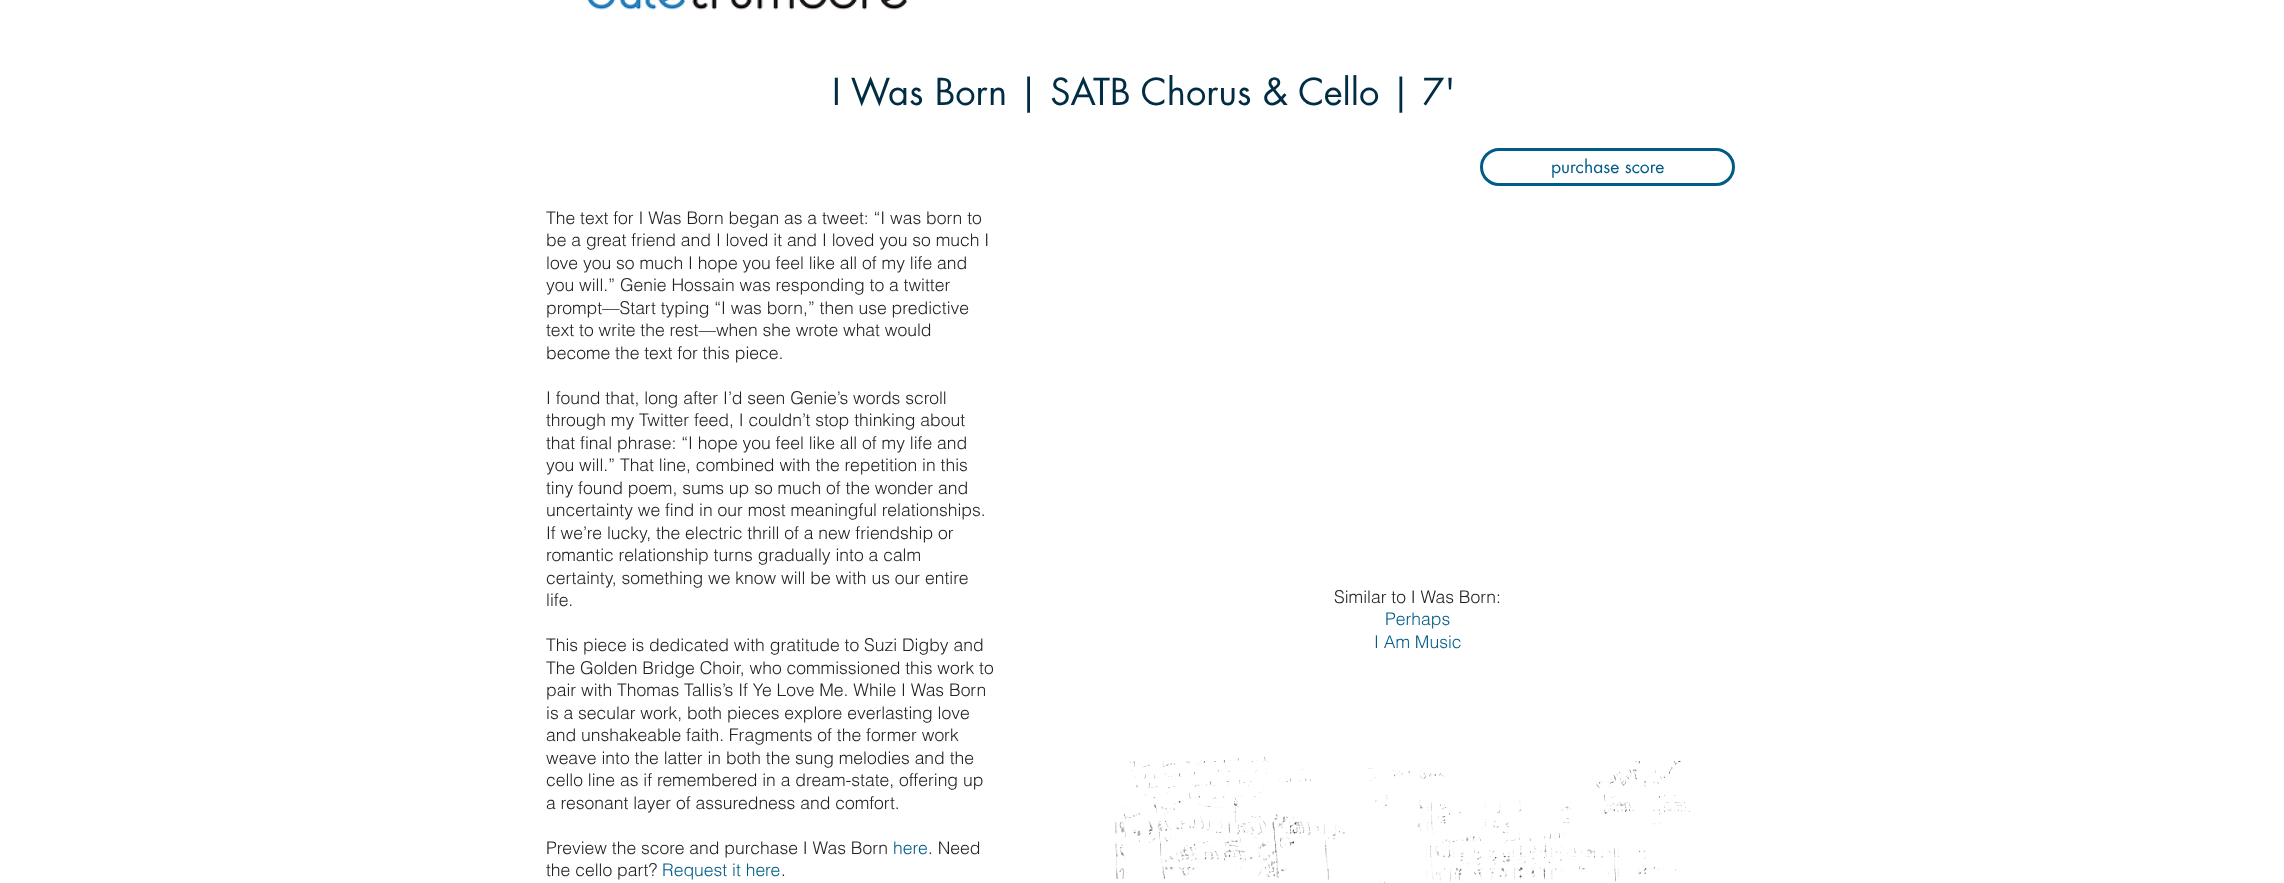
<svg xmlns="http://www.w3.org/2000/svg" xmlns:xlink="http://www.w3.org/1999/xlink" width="2284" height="883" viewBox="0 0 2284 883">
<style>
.cls-1{font:36.25px futura;fill:#002d43}
.cls-2{font:17.5px futura;fill:#005b86}
.cls-3{font:300 17.5px helvetica;fill:#222222}
.cls-4{font:300 17.5px helvetica;fill:#005b86}
</style>
<rect width="100%" height="100%" fill="#ffffff"/>
<image xlink:href="image0.png" x="587" y="0" width="321" height="10"/>
<rect fill="none" stroke="#005b86" stroke-width="3" x="1481.5" y="149.5" width="252" height="35" rx="17.5"/>
<image xlink:href="image1.png" x="1115" y="756" width="576" height="127"/>
<text class="cls-1" x="832" y="105">I Was Born | SATB Chorus &amp; Cello | 7'</text>
<text class="cls-2" x="1551" y="173">purchase score</text>
<text class="cls-3"><tspan x="546" y="224">The text for I Was Born began as a tweet: “I was born to</tspan><tspan x="546" y="246">be a great friend and I loved it and I loved you so much I</tspan><tspan x="546" y="269">love you so much I hope you feel like all of my life and</tspan><tspan x="546" y="291">you will.” Genie Hossain was responding to a twitter</tspan><tspan x="546" y="314">prompt—Start typing “I was born,” then use predictive</tspan><tspan x="546" y="336">text to write the rest—when she wrote what would</tspan><tspan x="546" y="359">become the text for this piece.</tspan></text>
<text class="cls-3"><tspan x="546" y="404">I found that, long after I’d seen Genie’s words scroll</tspan><tspan x="546" y="426">through my Twitter feed, I couldn’t stop thinking about</tspan><tspan x="546" y="449">that final phrase: “I hope you feel like all of my life and</tspan><tspan x="546" y="471">you will.” That line, combined with the repetition in this</tspan><tspan x="546" y="494">tiny found poem, sums up so much of the wonder and</tspan><tspan x="546" y="516">uncertainty we find in our most meaningful relationships.</tspan><tspan x="546" y="539">If we’re lucky, the electric thrill of a new friendship or</tspan><tspan x="546" y="561">romantic relationship turns gradually into a calm</tspan><tspan x="546" y="584">certainty, something we know will be with us our entire</tspan><tspan x="546" y="606">life.</tspan></text>
<text class="cls-3"><tspan x="546" y="651">This piece is dedicated with gratitude to Suzi Digby and</tspan><tspan x="546" y="674">The Golden Bridge Choir, who commissioned this work to</tspan><tspan x="546" y="696">pair with Thomas Tallis’s If Ye Love Me. While I Was Born</tspan><tspan x="546" y="719">is a secular work, both pieces explore everlasting love</tspan><tspan x="546" y="741">and unshakeable faith. Fragments of the former work</tspan><tspan x="546" y="764">weave into the latter in both the sung melodies and the</tspan><tspan x="546" y="786">cello line as if remembered in a dream-state, offering up</tspan><tspan x="546" y="809">a resonant layer of assuredness and comfort.</tspan></text>
<text class="cls-3" x="546" y="854">Preview the score and purchase I Was Born</text>
<text class="cls-4" x="893" y="854">here</text>
<text class="cls-3" x="928" y="854">. Need</text>
<text class="cls-3" x="546" y="876">the cello part?</text>
<text class="cls-4" x="662" y="876">Request it here</text>
<text class="cls-3" x="781" y="876">.</text>
<text class="cls-3" x="1334" y="603">Similar to I Was Born:</text>
<text class="cls-4" x="1385" y="625">Perhaps</text>
<text class="cls-4" x="1374" y="648">I Am Music</text>
</svg>
